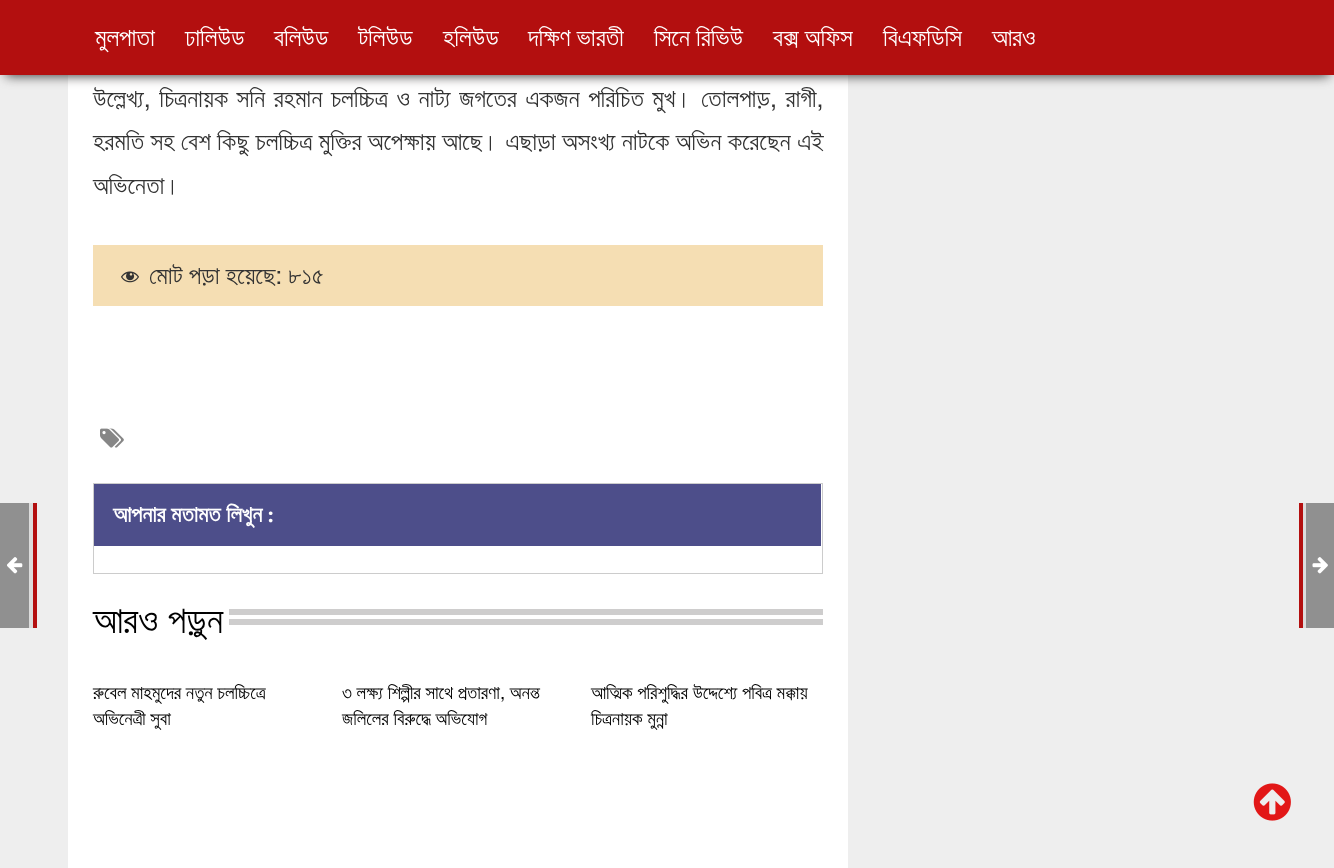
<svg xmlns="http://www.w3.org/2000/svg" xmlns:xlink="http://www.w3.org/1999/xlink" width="1334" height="868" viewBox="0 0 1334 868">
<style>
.cls-1{font:25px FreeSans;fill:#ffffff}
.cls-2{font:25px FreeSans;fill:#333333}
.cls-3{font:bold 22.5px FreeSans;fill:#ffffff}
.cls-4{font:bold 22.5px Liberation Serif;fill:#ffffff}
.cls-5{font:37.5px FreeSans;fill:#000000}
.cls-6{font:18.75px FreeSans;fill:#000000}
</style>
<rect width="100%" height="100%" fill="#eeeeee"/>
<rect fill="#ffffff" x="68" y="75" width="780" height="793"/>
<rect fill="#3e3c3c" filter="blur(6px)" x="6" y="14" width="1323" height="62"/>
<rect fill="#b30f0f" x="0" y="0" width="1334" height="75"/>
<rect fill="#f5deb3" x="93" y="245" width="730" height="61"/>
<image xlink:href="image0.png" x="121" y="271" width="18" height="12"/>
<image xlink:href="image1.png" x="100" y="428" width="24" height="20"/>
<rect fill="#909090" x="0" y="503" width="29" height="125"/>
<image xlink:href="image2.png" x="7" y="557" width="16" height="17"/>
<rect fill="#dcdcdc" x="29" y="503" width="4" height="125"/>
<rect fill="#b30f0f" x="33" y="503" width="4" height="125"/>
<rect fill="#dcdcdc" x="1303" y="503" width="3" height="125"/>
<rect fill="#b30f0f" x="1299" y="503" width="4" height="125"/>
<rect fill="#909090" x="1306" y="503" width="28" height="125"/>
<image xlink:href="image3.png" x="1312" y="557" width="16" height="17"/>
<rect fill="none" stroke="#cccccc" x="93.5" y="483.5" width="729" height="90"/>
<rect fill="#4d4e8a" x="94" y="484" width="727" height="62"/>
<rect fill="#cecdcd" x="229" y="609" width="594" height="6"/>
<rect fill="#cecdcd" x="229" y="619" width="594" height="6"/>
<image xlink:href="image4.png" x="1253" y="783" width="38" height="38"/>
<text class="cls-1" x="95" y="46">মুলপাতা</text>
<text class="cls-1" x="185" y="46">ঢালিউড</text>
<text class="cls-1" x="274" y="46">বলিউড</text>
<text class="cls-1" x="358" y="46">টলিউড</text>
<text class="cls-1" x="443" y="46">হলিউড</text>
<text class="cls-1" x="528" y="46">দক্ষিণ ভারতী</text>
<text class="cls-1" x="654" y="46">সিনে রিভিউ</text>
<text class="cls-1" x="773" y="46">বক্স অফিস</text>
<text class="cls-1" x="883" y="46">বিএফডিসি</text>
<text class="cls-1" x="992" y="46">আরও</text>
<text class="cls-2"><tspan x="93" y="107" word-spacing="2.4">উল্লেখ্য, চিত্রনায়ক সনি রহমান চলচ্চিত্র ও নাট্য জগতের একজন পরিচিত মুখ। তোলপাড়, রাগী,</tspan><tspan x="93" y="150" word-spacing="0.2">হরমতি সহ বেশ কিছু চলচ্চিত্র মুক্তির অপেক্ষায় আছে। এছাড়া অসংখ্য নাটকে অভিন করেছেন এই</tspan><tspan x="93" y="194">অভিনেতা।</tspan></text>
<text class="cls-2" x="149" y="284">মোট পড়া হয়েছে:</text>
<text class="cls-2" x="288" y="284">৮১৫</text>
<text class="cls-3" x="113" y="522">আপনার মতামত লিখুন</text>
<text class="cls-4" x="267" y="522">:</text>
<text class="cls-5" x="93" y="633">আরও পড়ুন</text>
<text class="cls-6"><tspan x="93" y="699">রুবেল মাহমুদের নতুন চলচ্চিত্রে</tspan><tspan x="93" y="725">অভিনেত্রী সুবা</tspan></text>
<text class="cls-6"><tspan x="342" y="699">৩ লক্ষ্য শিল্পীর সাথে প্রতারণা, অনন্ত</tspan><tspan x="342" y="725">জলিলের বিরুদ্ধে অভিযোগ</tspan></text>
<text class="cls-6"><tspan x="591" y="699">আত্মিক পরিশুদ্ধির উদ্দেশ্যে পবিত্র মক্কায়</tspan><tspan x="591" y="725">চিত্রনায়ক মুন্না</tspan></text>
</svg>
